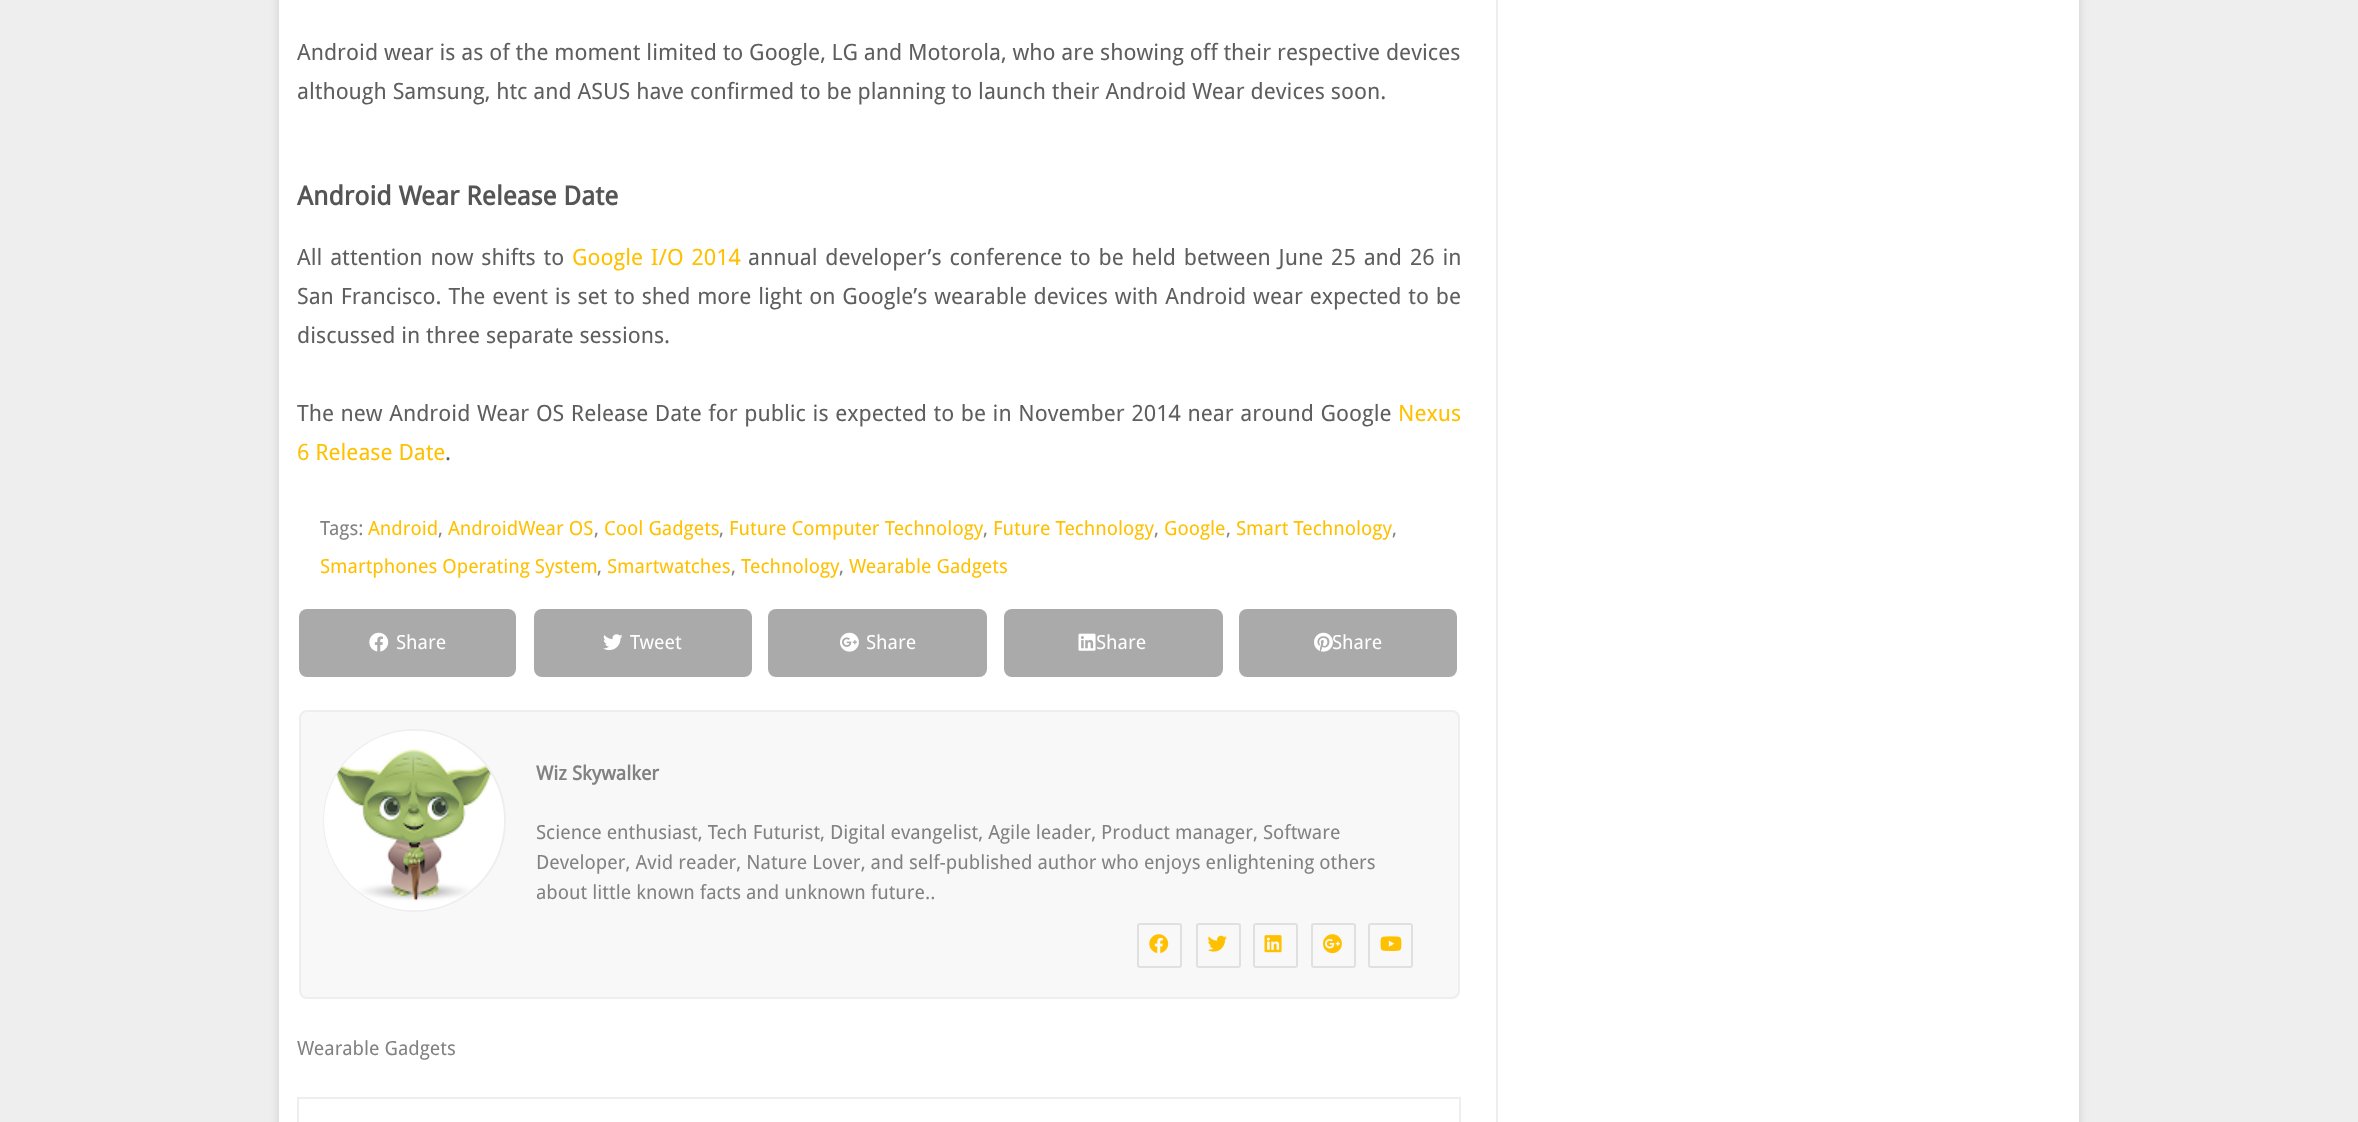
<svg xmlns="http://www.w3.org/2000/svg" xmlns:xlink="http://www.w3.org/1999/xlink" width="2358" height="1122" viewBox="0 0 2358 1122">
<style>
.cls-1{font:22.5px Droid Sans;fill:#5e5e5e}
.cls-2{font:bold 26.25px Droid Sans;fill:#555555}
.cls-3{font:22.5px Droid Sans;fill:#ffc000}
.cls-4{font:19.5px Droid Sans;fill:#828282}
.cls-5{font:19.5px Droid Sans;fill:#ffc000}
.cls-6{font:19.5px Droid Sans;fill:#ffffff}
.cls-7{font:bold 19.5px Droid Sans;fill:#828282}
</style>
<rect width="100%" height="100%" fill="#eeeeee"/>
<rect fill="#cccccc" filter="blur(4px)" x="279" y="-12" width="1800" height="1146"/>
<rect fill="#ffffff" x="279" y="0" width="1800" height="1122"/>
<rect fill="#eeeeee" x="1496" y="0" width="2" height="1122"/>
<rect fill="#aaaaaa" x="299" y="609" width="217" height="68" rx="8"/>
<image xlink:href="image0.png" x="369" y="632" width="20" height="20"/>
<rect fill="#aaaaaa" x="534" y="609" width="218" height="68" rx="8"/>
<image xlink:href="image1.png" x="603" y="634" width="20" height="17"/>
<rect fill="#aaaaaa" x="768" y="609" width="219" height="68" rx="8"/>
<image xlink:href="image2.png" x="840" y="632" width="19" height="20"/>
<rect fill="#aaaaaa" x="1004" y="609" width="219" height="68" rx="8"/>
<image xlink:href="image3.png" x="1078" y="633" width="18" height="18"/>
<rect fill="#aaaaaa" x="1239" y="609" width="218" height="68" rx="8"/>
<image xlink:href="image4.png" x="1314" y="632" width="19" height="20"/>
<rect fill="#f8f8f8" stroke="#eeeeee" stroke-width="2" x="300" y="711" width="1159" height="287" rx="7"/>
<circle fill="none" stroke="#eeeeee" stroke-width="2" cx="414.5" cy="820.5" r="90.5"/>
<image xlink:href="image5.png" x="324" y="730" width="180" height="181"/>
<rect fill="none" stroke="#e0e0e0" stroke-width="2" x="1138" y="924" width="43" height="43" rx="2"/>
<image xlink:href="image6.png" x="1149" y="934" width="20" height="19"/>
<rect fill="none" stroke="#e0e0e0" stroke-width="2" x="1197" y="924" width="43" height="43" rx="2"/>
<image xlink:href="image7.png" x="1207" y="935" width="20" height="17"/>
<rect fill="none" stroke="#e0e0e0" stroke-width="2" x="1254" y="924" width="43" height="43" rx="2"/>
<image xlink:href="image8.png" x="1264" y="935" width="18" height="18"/>
<rect fill="none" stroke="#e0e0e0" stroke-width="2" x="1312" y="924" width="43" height="43" rx="2"/>
<image xlink:href="image9.png" x="1323" y="934" width="19" height="20"/>
<rect fill="none" stroke="#e0e0e0" stroke-width="2" x="1369" y="924" width="43" height="43" rx="2"/>
<image xlink:href="image10.png" x="1380" y="936" width="22" height="15"/>
<rect fill="none" stroke="#eeeeee" stroke-width="2" x="298" y="1098" width="1162" height="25"/>
<text class="cls-1"><tspan x="297" y="60">Android wear is as of the moment limited to Google, LG and Motorola, who are showing off their respective devices</tspan><tspan x="297" y="99">although Samsung, htc and ASUS have confirmed to be planning to launch their Android Wear devices soon.</tspan></text>
<text class="cls-2" x="297" y="205">Android Wear Release Date</text>
<text class="cls-1" x="297" y="265" word-spacing="2">All attention now shifts to</text>
<text class="cls-3" x="572" y="265" word-spacing="2">Google I/O 2014</text>
<text class="cls-1" x="748" y="265" word-spacing="2">annual developer’s conference to be held between June 25 and 26 in</text>
<text class="cls-1"><tspan x="297" y="304" word-spacing="1">San Francisco. The event is set to shed more light on Google’s wearable devices with Android wear expected to be</tspan><tspan x="297" y="343">discussed in three separate sessions.</tspan></text>
<text class="cls-1" x="297" y="421" word-spacing="0.75">The new Android Wear OS Release Date for public is expected to be in November 2014 near around Google</text>
<text class="cls-3" x="1398" y="421">Nexus</text>
<text class="cls-3" x="297" y="460">6 Release Date</text>
<text class="cls-1" x="445" y="460">.</text>
<text class="cls-4" x="320" y="535">Tags:</text>
<text class="cls-5" x="368" y="535">Android</text>
<text class="cls-4" x="438" y="535">,</text>
<text class="cls-5" x="448" y="535">AndroidWear OS</text>
<text class="cls-4" x="594" y="535">,</text>
<text class="cls-5" x="604" y="535">Cool Gadgets</text>
<text class="cls-4" x="719" y="535">,</text>
<text class="cls-5" x="729" y="535">Future Computer Technology</text>
<text class="cls-4" x="983" y="535">,</text>
<text class="cls-5" x="993" y="535">Future Technology</text>
<text class="cls-4" x="1154" y="535">,</text>
<text class="cls-5" x="1164" y="535">Google</text>
<text class="cls-4" x="1226" y="535">,</text>
<text class="cls-5" x="1236" y="535">Smart Technology</text>
<text class="cls-4" x="1392" y="535">,</text>
<text class="cls-5" x="320" y="573">Smartphones Operating System</text>
<text class="cls-4" x="597" y="573">,</text>
<text class="cls-5" x="607" y="573">Smartwatches</text>
<text class="cls-4" x="731" y="573">,</text>
<text class="cls-5" x="741" y="573">Technology</text>
<text class="cls-4" x="839" y="573">,</text>
<text class="cls-5" x="849" y="573">Wearable Gadgets</text>
<text class="cls-6" x="396" y="649">Share</text>
<text class="cls-6" x="630" y="649">Tweet</text>
<text class="cls-6" x="866" y="649">Share</text>
<text class="cls-6" x="1096" y="649">Share</text>
<text class="cls-6" x="1332" y="649">Share</text>
<text class="cls-7" x="536" y="780">Wiz Skywalker</text>
<text class="cls-4"><tspan x="536" y="839">Science enthusiast, Tech Futurist, Digital evangelist, Agile leader, Product manager, Software</tspan><tspan x="536" y="869">Developer, Avid reader, Nature Lover, and self-published author who enjoys enlightening others</tspan><tspan x="536" y="899">about little known facts and unknown future..</tspan></text>
<text class="cls-4" x="297" y="1055">Wearable Gadgets</text>
</svg>
